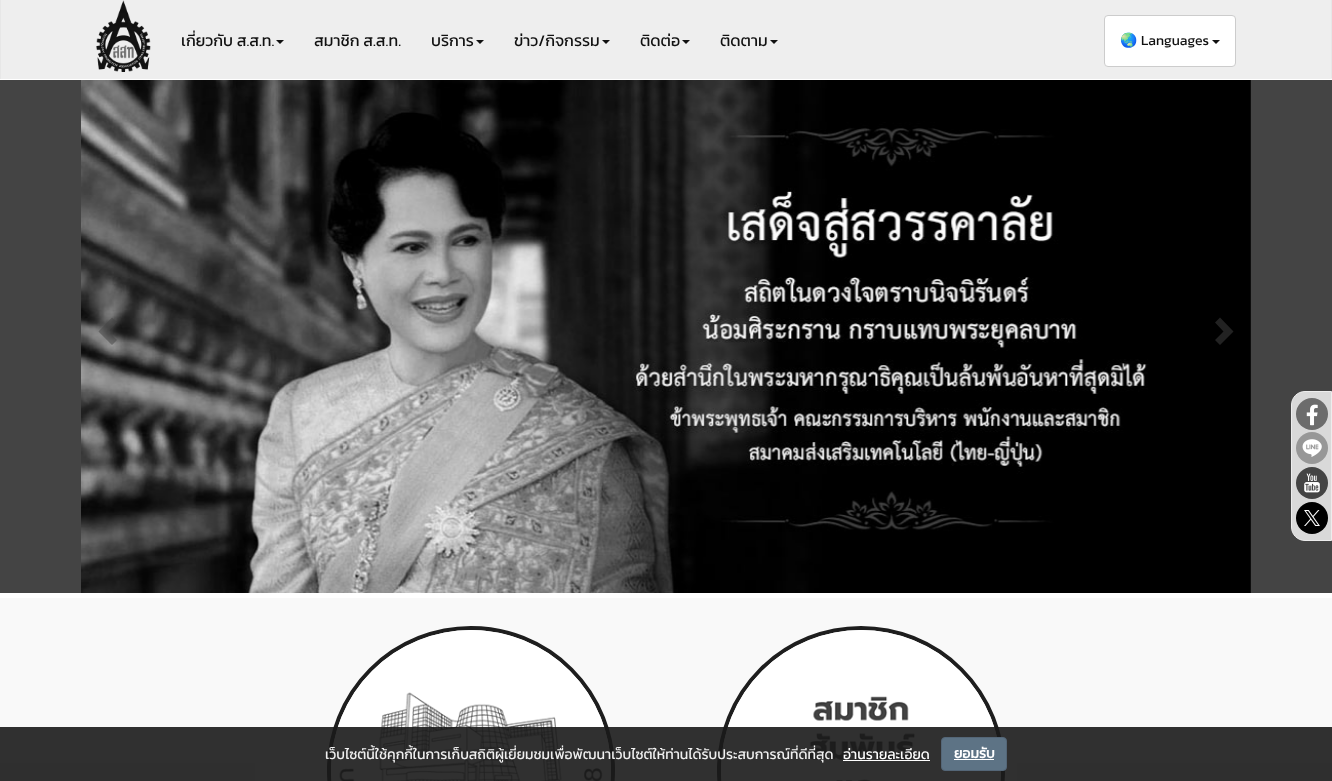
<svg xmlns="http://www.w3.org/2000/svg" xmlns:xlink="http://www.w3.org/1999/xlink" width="1332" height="781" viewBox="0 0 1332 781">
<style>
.cls-1{font:16px Kanit;fill:#111111}
.cls-2{font:14px Noto Color Emoji;fill:#111111}
.cls-3{font:14px Kanit;fill:#111111}
.cls-4{font:14px Kanit;fill:#f0f0f0}
.cls-5{font:14px Kanit;fill:#ffffff}
.cls-6{font:bold 14px Kanit;fill:#ffffff}
</style>
<rect width="100%" height="100%" fill="#ffffff"/>
<rect fill="#eeeeee" x="1" y="0" width="1330" height="78"/>
<rect fill="#e7e7e7" x="1331" y="0" width="1" height="79"/>
<rect fill="#eeeeee" x="0" y="78" width="1332" height="1"/>
<rect fill="#e7e7e7" x="0" y="0" width="1" height="79"/>
<image xlink:href="image0.png" x="96" y="0" width="55" height="72"/>
<path fill="#111111" d="M276 40H284L280 44Z"/>
<path fill="#111111" d="M476 40H484L480 44Z"/>
<path fill="#111111" d="M602 40H610L606 44Z"/>
<path fill="#111111" d="M682 40H690L686 44Z"/>
<path fill="#111111" d="M770 40H778L774 44Z"/>
<rect fill="#ffffff" stroke="#cccccc" x="1104.5" y="15.5" width="131" height="51" rx="3.5"/>
<path fill="#111111" d="M1212 40H1220L1216 44Z"/>
<rect fill="#444444" x="0" y="80" width="1332" height="513"/>
<image xlink:href="image1.png" x="81" y="80" width="1170" height="513"/>
<path fill="#444444" fill-opacity="0.5" d="M117 322.5L108.5 331.5L117 340L112 345L98.5 331.5L112 317.5Z"/>
<path fill="#222222" d="M1233.5 331.5L1220 345L1215 340L1223.5 331.5L1215 322.5L1220 317.5Z"/>
<path fill="#ffffff" fill-opacity="0.8" stroke="#ededed" d="M1305 391.5H1331.5V540.5H1305C1297.5 540.5 1291.5 534.5 1291.5 527V405C1291.5 397.5 1297.5 391.5 1305 391.5Z"/>
<image xlink:href="image2.png" x="1296" y="398" width="32" height="32"/>
<image xlink:href="image3.png" x="1296" y="432" width="32" height="32"/>
<image xlink:href="image4.png" x="1296" y="467" width="32" height="32"/>
<image xlink:href="image5.png" x="1296" y="502" width="32" height="32"/>
<rect fill="#f9f9f9" x="0" y="598" width="1332" height="183"/>
<circle fill="none" stroke="#1e1e1e" stroke-width="4" cx="471" cy="770" r="142"/>
<image xlink:href="image6.png" x="331" y="630" width="280" height="151"/>
<circle fill="none" stroke="#1e1e1e" stroke-width="4" cx="861" cy="770" r="142"/>
<image xlink:href="image7.png" x="721" y="630" width="280" height="151"/>
<rect fill="#191919" fill-opacity="0.9" x="0" y="727" width="1332" height="54"/>
<rect fill="#ffffff" x="843" y="760" width="87" height="1"/>
<rect fill="#5d7385" stroke="#546677" x="941.5" y="737.5" width="65" height="33" rx="3.5"/>
<rect fill="#ffffff" x="954" y="759" width="40" height="1"/>
<text class="cls-1" x="181" y="46">เกี่ยวกับ ส.ส.ท.</text>
<text class="cls-1" x="314" y="46">สมาชิก ส.ส.ท.</text>
<text class="cls-1" x="431" y="46">บริการ</text>
<text class="cls-1" x="514" y="46">ข่าว/กิจกรรม</text>
<text class="cls-1" x="640" y="46">ติดต่อ</text>
<text class="cls-1" x="720" y="46">ติดตาม</text>
<text class="cls-2" x="1120" y="45">🌏</text>
<text class="cls-3" x="1141" y="45">Languages</text>
<text class="cls-4" x="325" y="759">เว็บไซต์นี้ใช้คุกกี้ในการเก็บสถิติผู้เยี่ยมชมเพื่อพัฒนาเว็บไซต์ให้ท่านได้รับประสบการณ์ที่ดีที่สุด</text>
<text class="cls-5" x="843" y="759">อ่านรายละเอียด</text>
<text class="cls-6" x="954" y="758">ยอมรับ</text>
</svg>
